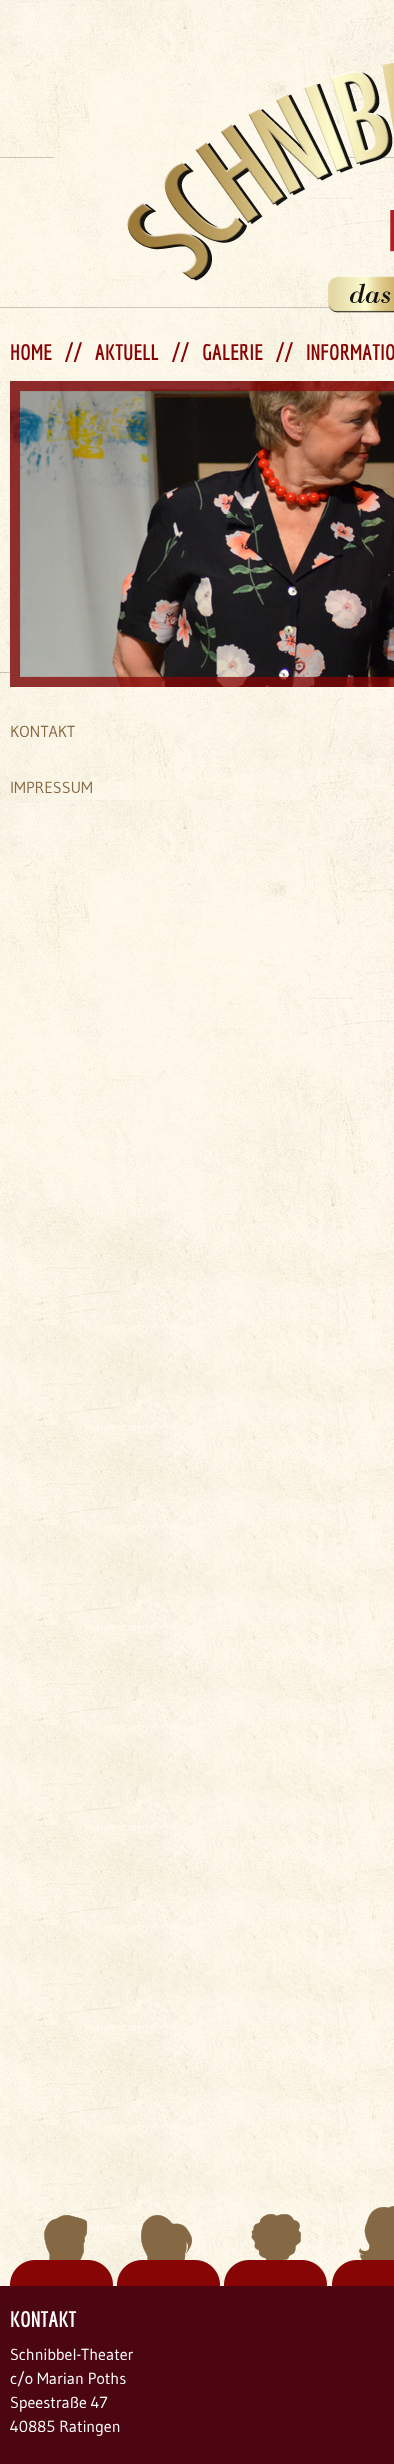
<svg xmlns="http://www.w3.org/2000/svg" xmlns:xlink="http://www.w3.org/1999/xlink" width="394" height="2464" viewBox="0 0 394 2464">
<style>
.cls-1{font:bold 22px Economica;fill:#870505}
.cls-2{font:16px Gudea;fill:#856944}
.cls-3{font:bold 22px Economica;fill:#ffffff}
.cls-4{font:16px Gudea;fill:#ffffff}
</style>
<rect width="100%" height="100%" fill="#ffffff"/>
<image xlink:href="image0.png" x="0" y="1309" width="394" height="977"/>
<image xlink:href="image1.png" x="0" y="0" width="394" height="1309"/>
<image xlink:href="image2.png" x="127" y="61" width="267" height="252"/>
<image xlink:href="image3.png" x="65" y="342" width="17" height="20"/>
<image xlink:href="image4.png" x="172" y="342" width="17" height="20"/>
<image xlink:href="image5.png" x="276" y="342" width="17" height="20"/>
<image xlink:href="image6.png" x="10" y="381" width="384" height="306"/>
<image xlink:href="image7.png" x="10" y="381" width="384" height="306"/>
<rect fill="#4c0611" x="0" y="2286" width="394" height="178"/>
<image xlink:href="image8.png" x="10" y="2206" width="384" height="80"/>
<text class="cls-1" x="10" y="360">HOME</text>
<text class="cls-1" x="95" y="360">AKTUELL</text>
<text class="cls-1" x="202" y="360">GALERIE</text>
<text class="cls-1" x="306" y="360">INFORMATIO</text>
<text class="cls-2" x="10" y="737">KONTAKT</text>
<text class="cls-2" x="10" y="793">IMPRESSUM</text>
<text class="cls-3" x="10" y="2327">KONTAKT</text>
<text class="cls-4"><tspan x="10" y="2360">Schnibbel-Theater</tspan><tspan x="10" y="2384">c/o Marian Poths</tspan><tspan x="10" y="2408">Speestraße 47</tspan><tspan x="10" y="2432">40885 Ratingen</tspan></text>
</svg>
